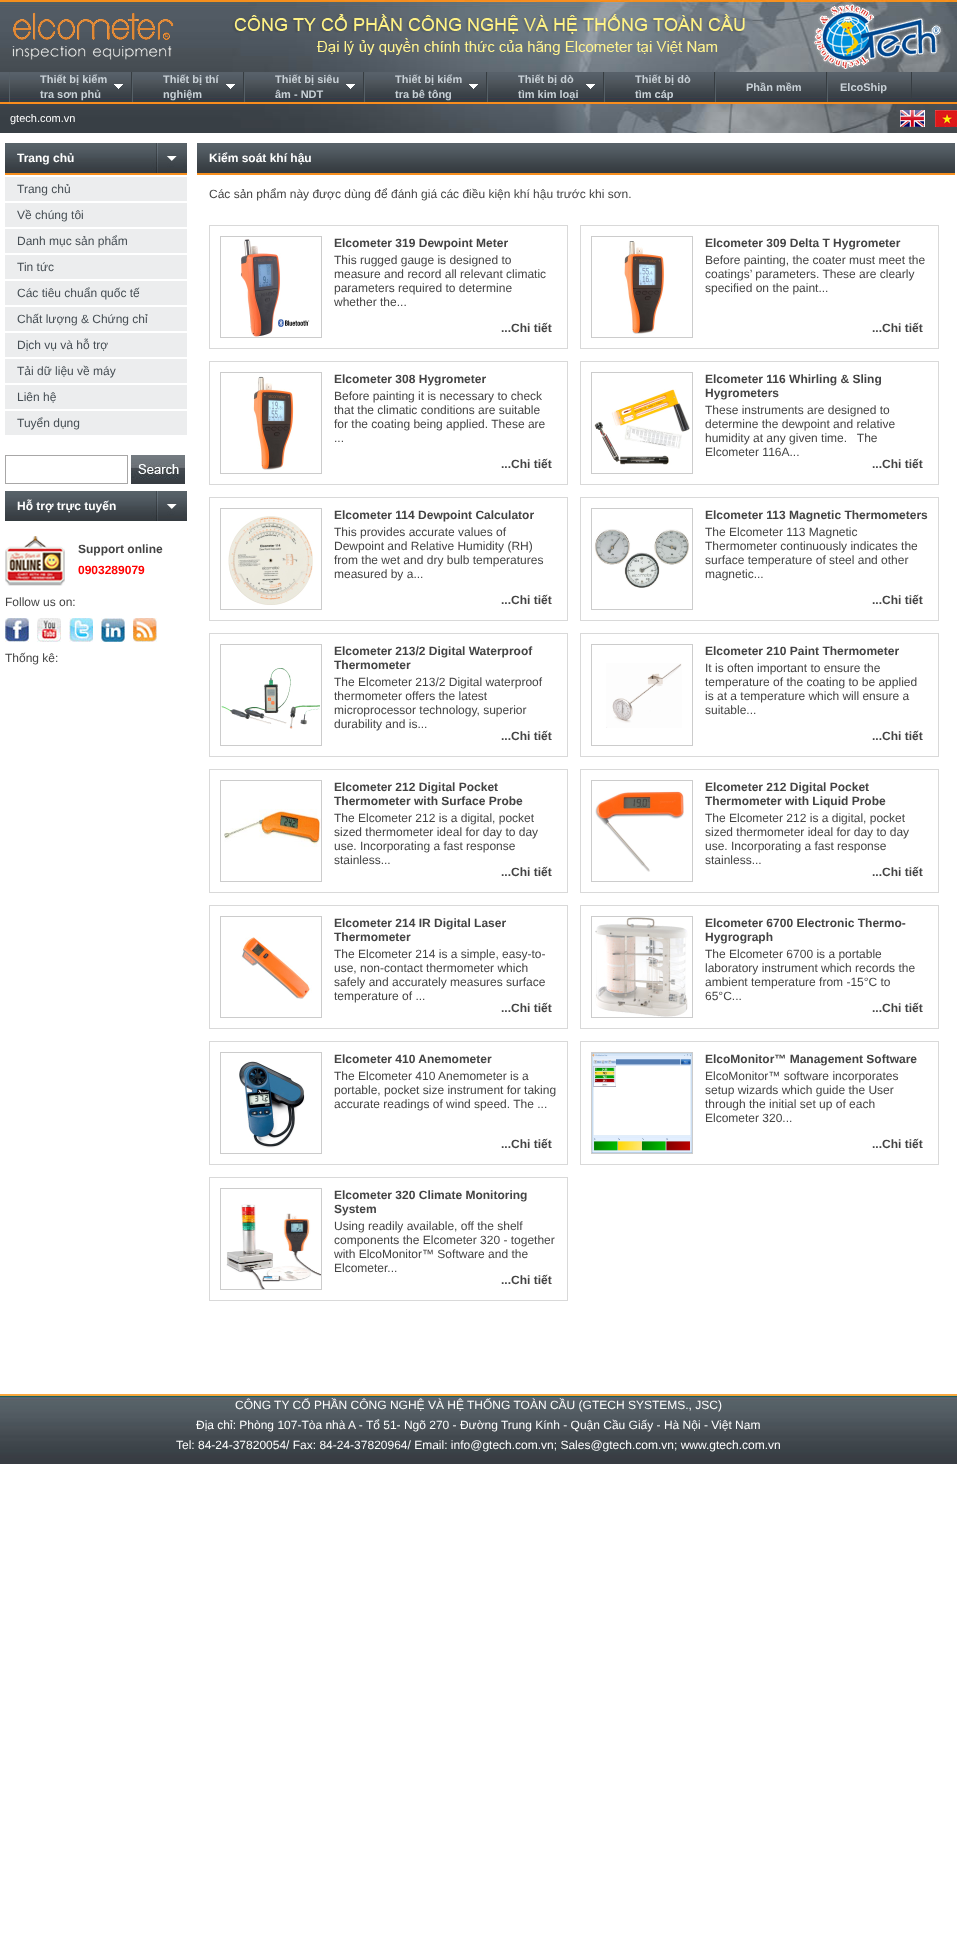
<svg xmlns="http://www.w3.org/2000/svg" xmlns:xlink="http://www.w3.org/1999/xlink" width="957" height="1938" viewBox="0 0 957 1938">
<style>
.cls-1{font:bold 11px Liberation Sans;fill:#c8d0d6}
.cls-2{font:11px Liberation Sans;fill:#fefefe}
.cls-3{font:bold 12px Liberation Sans;fill:#fefefe}
.cls-4{font:12px Liberation Sans;fill:#464e54}
.cls-5{font:bold 12px Liberation Sans;fill:#444444}
.cls-6{font:bold 12px Liberation Sans;fill:#ff0000}
.cls-7{font:12px Liberation Sans;fill:#444444}
.cls-8{font:12px Liberation Sans;fill:#fefefe}
</style>
<rect width="100%" height="100%" fill="#ffffff"/>
<image xlink:href="image0.png" x="0" y="0" width="957" height="133"/>
<image xlink:href="image1.png" x="12" y="12" width="162" height="48"/>
<image xlink:href="image2.png" x="232" y="14" width="513" height="41"/>
<image xlink:href="image3.png" x="812" y="3" width="131" height="66"/>
<rect fill="#373d42" x="131" y="72" width="1" height="30"/>
<rect fill="#555f66" x="9" y="72" width="1" height="30"/>
<image xlink:href="image4.png" x="114" y="84" width="9" height="5"/>
<rect fill="#373d42" x="243" y="72" width="1" height="30"/>
<rect fill="#555f66" x="132" y="72" width="1" height="30"/>
<image xlink:href="image4.png" x="226" y="84" width="9" height="5"/>
<rect fill="#373d42" x="363" y="72" width="1" height="30"/>
<rect fill="#555f66" x="244" y="72" width="1" height="30"/>
<image xlink:href="image4.png" x="346" y="84" width="9" height="5"/>
<rect fill="#373d42" x="486" y="72" width="1" height="30"/>
<rect fill="#555f66" x="364" y="72" width="1" height="30"/>
<image xlink:href="image4.png" x="469" y="84" width="9" height="5"/>
<rect fill="#373d42" x="603" y="72" width="1" height="30"/>
<rect fill="#555f66" x="487" y="72" width="1" height="30"/>
<image xlink:href="image4.png" x="586" y="84" width="9" height="5"/>
<rect fill="#373d42" x="714" y="72" width="1" height="30"/>
<rect fill="#555f66" x="604" y="72" width="1" height="30"/>
<rect fill="#373d42" x="826" y="72" width="1" height="30"/>
<rect fill="#555f66" x="715" y="72" width="1" height="30"/>
<rect fill="#373d42" x="911" y="72" width="1" height="30"/>
<rect fill="#555f66" x="827" y="72" width="1" height="30"/>
<image xlink:href="image5.png" x="900" y="110" width="25" height="17"/>
<image xlink:href="image6.png" x="935" y="110" width="22" height="17"/>
<image xlink:href="image7.png" x="5" y="143" width="182" height="30"/>
<rect fill="#f78f1e" x="5" y="173" width="182" height="2"/>
<rect fill="#ecedee" x="5" y="177" width="182" height="24"/>
<rect fill="#ecedee" x="5" y="203" width="182" height="24"/>
<rect fill="#ecedee" x="5" y="229" width="182" height="24"/>
<rect fill="#ecedee" x="5" y="255" width="182" height="24"/>
<rect fill="#ecedee" x="5" y="281" width="182" height="24"/>
<rect fill="#ecedee" x="5" y="307" width="182" height="24"/>
<rect fill="#ecedee" x="5" y="333" width="182" height="24"/>
<rect fill="#ecedee" x="5" y="359" width="182" height="24"/>
<rect fill="#ecedee" x="5" y="385" width="182" height="24"/>
<rect fill="#ecedee" x="5" y="411" width="182" height="24"/>
<rect fill="none" stroke="#a8a7a7" x="5.5" y="455.5" width="122" height="28"/>
<image xlink:href="image8.png" x="131" y="455" width="54" height="29"/>
<image xlink:href="image7.png" x="5" y="491" width="182" height="30"/>
<image xlink:href="image9.png" x="5" y="536" width="60" height="50"/>
<image xlink:href="image10.png" x="5" y="618" width="24" height="24"/>
<image xlink:href="image11.png" x="37" y="618" width="24" height="24"/>
<image xlink:href="image12.png" x="69" y="618" width="24" height="24"/>
<image xlink:href="image13.png" x="101" y="618" width="24" height="24"/>
<image xlink:href="image14.png" x="133" y="618" width="24" height="24"/>
<image xlink:href="image15.png" x="197" y="143" width="758" height="30"/>
<rect fill="#f78f1e" x="197" y="173" width="758" height="2"/>
<rect fill="none" stroke="#d9d9d9" x="209.5" y="225.5" width="358" height="123"/>
<rect fill="none" stroke="#cccccc" x="220.5" y="236.5" width="101" height="101"/>
<image xlink:href="image16.png" x="240" y="239" width="70" height="98"/>
<rect fill="none" stroke="#d9d9d9" x="580.5" y="225.5" width="358" height="123"/>
<rect fill="none" stroke="#cccccc" x="591.5" y="236.5" width="101" height="101"/>
<image xlink:href="image17.png" x="624" y="241" width="40" height="93"/>
<rect fill="none" stroke="#d9d9d9" x="209.5" y="361.5" width="358" height="123"/>
<rect fill="none" stroke="#cccccc" x="220.5" y="372.5" width="101" height="101"/>
<image xlink:href="image18.png" x="253" y="376" width="41" height="94"/>
<rect fill="none" stroke="#d9d9d9" x="580.5" y="361.5" width="358" height="123"/>
<rect fill="none" stroke="#cccccc" x="591.5" y="372.5" width="101" height="101"/>
<image xlink:href="image19.png" x="594" y="389" width="96" height="76"/>
<rect fill="none" stroke="#d9d9d9" x="209.5" y="497.5" width="358" height="123"/>
<rect fill="none" stroke="#cccccc" x="220.5" y="508.5" width="101" height="101"/>
<image xlink:href="image20.png" x="228" y="516" width="85" height="89"/>
<rect fill="none" stroke="#d9d9d9" x="580.5" y="497.5" width="358" height="123"/>
<rect fill="none" stroke="#cccccc" x="591.5" y="508.5" width="101" height="101"/>
<image xlink:href="image21.png" x="594" y="529" width="95" height="59"/>
<rect fill="none" stroke="#d9d9d9" x="209.5" y="633.5" width="358" height="123"/>
<rect fill="none" stroke="#cccccc" x="220.5" y="644.5" width="101" height="101"/>
<image xlink:href="image22.png" x="221" y="668" width="99" height="61"/>
<rect fill="none" stroke="#d9d9d9" x="580.5" y="633.5" width="358" height="123"/>
<rect fill="none" stroke="#cccccc" x="591.5" y="644.5" width="101" height="101"/>
<image xlink:href="image23.png" x="606" y="663" width="76" height="65"/>
<rect fill="none" stroke="#d9d9d9" x="209.5" y="769.5" width="358" height="123"/>
<rect fill="none" stroke="#cccccc" x="220.5" y="780.5" width="101" height="101"/>
<image xlink:href="image24.png" x="224" y="809" width="97" height="38"/>
<rect fill="none" stroke="#d9d9d9" x="580.5" y="769.5" width="358" height="123"/>
<rect fill="none" stroke="#cccccc" x="591.5" y="780.5" width="101" height="101"/>
<image xlink:href="image25.png" x="595" y="791" width="89" height="81"/>
<rect fill="none" stroke="#d9d9d9" x="209.5" y="905.5" width="358" height="123"/>
<rect fill="none" stroke="#cccccc" x="220.5" y="916.5" width="101" height="101"/>
<image xlink:href="image26.png" x="241" y="937" width="71" height="63"/>
<rect fill="none" stroke="#d9d9d9" x="580.5" y="905.5" width="358" height="123"/>
<rect fill="none" stroke="#cccccc" x="591.5" y="916.5" width="101" height="101"/>
<image xlink:href="image27.png" x="595" y="917" width="93" height="100"/>
<rect fill="none" stroke="#d9d9d9" x="209.5" y="1041.5" width="358" height="123"/>
<rect fill="none" stroke="#cccccc" x="220.5" y="1052.5" width="101" height="101"/>
<image xlink:href="image28.png" x="239" y="1061" width="66" height="87"/>
<rect fill="none" stroke="#d9d9d9" x="580.5" y="1041.5" width="358" height="123"/>
<rect fill="none" stroke="#cccccc" x="591.5" y="1052.5" width="101" height="101"/>
<image xlink:href="image29.png" x="592" y="1053" width="100" height="100"/>
<rect fill="none" stroke="#d9d9d9" x="209.5" y="1177.5" width="358" height="123"/>
<rect fill="none" stroke="#cccccc" x="220.5" y="1188.5" width="101" height="101"/>
<image xlink:href="image30.png" x="226" y="1204" width="95" height="85"/>
<image xlink:href="image31.png" x="0" y="1394" width="957" height="70"/>
<text class="cls-1"><tspan x="40" y="83">Thiết bị kiểm</tspan><tspan x="40" y="98">tra sơn phủ</tspan></text>
<text class="cls-1"><tspan x="163" y="83">Thiết bị thí</tspan><tspan x="163" y="98">nghiệm</tspan></text>
<text class="cls-1"><tspan x="275" y="83">Thiết bị siêu</tspan><tspan x="275" y="98">âm - NDT</tspan></text>
<text class="cls-1"><tspan x="395" y="83">Thiết bị kiểm</tspan><tspan x="395" y="98">tra bê tông</tspan></text>
<text class="cls-1"><tspan x="518" y="83">Thiết bị dò</tspan><tspan x="518" y="98">tìm kim loại</tspan></text>
<text class="cls-1"><tspan x="635" y="83">Thiết bị dò</tspan><tspan x="635" y="98">tìm cáp</tspan></text>
<text class="cls-1" x="746" y="91">Phần mềm</text>
<text class="cls-1" x="840" y="91">ElcoShip</text>
<text class="cls-2" x="10" y="122">gtech.com.vn</text>
<text class="cls-3" x="17" y="162">Trang chủ</text>
<text class="cls-4" x="17" y="193">Trang chủ</text>
<text class="cls-4" x="17" y="219">Về chúng tôi</text>
<text class="cls-4" x="17" y="245">Danh mục sản phẩm</text>
<text class="cls-4" x="17" y="271">Tin tức</text>
<text class="cls-4" x="17" y="297">Các tiêu chuẩn quốc tế</text>
<text class="cls-4" x="17" y="323">Chất lượng &amp; Chứng chỉ</text>
<text class="cls-4" x="17" y="349">Dịch vụ và hỗ trợ</text>
<text class="cls-4" x="17" y="375">Tải dữ liệu về máy</text>
<text class="cls-4" x="17" y="401">Liên hệ</text>
<text class="cls-4" x="17" y="427">Tuyển dụng</text>
<text class="cls-3" x="17" y="510">Hỗ trợ trực tuyến</text>
<text class="cls-5" x="78" y="553">Support online</text>
<text class="cls-6" x="78" y="574">0903289079</text>
<text class="cls-7" x="5" y="606">Follow us on:</text>
<text class="cls-7" x="5" y="662">Thống kê:</text>
<text class="cls-3" x="209" y="162">Kiểm soát khí hậu</text>
<text class="cls-7" x="209" y="198">Các sản phẩm này được dùng để đánh giá các điều kiện khí hậu trước khi sơn.</text>
<text class="cls-5" x="334" y="247">Elcometer 319 Dewpoint Meter</text>
<text class="cls-7"><tspan x="334" y="264">This rugged gauge is designed to</tspan><tspan x="334" y="278">measure and record all relevant climatic</tspan><tspan x="334" y="292">parameters required to determine</tspan><tspan x="334" y="306">whether the...</tspan></text>
<text class="cls-5" x="501" y="332">...Chi tiết</text>
<text class="cls-5" x="705" y="247">Elcometer 309 Delta T Hygrometer</text>
<text class="cls-7"><tspan x="705" y="264">Before painting, the coater must meet the</tspan><tspan x="705" y="278">coatings’ parameters. These are clearly</tspan><tspan x="705" y="292">specified on the paint...</tspan></text>
<text class="cls-5" x="872" y="332">...Chi tiết</text>
<text class="cls-5" x="334" y="383">Elcometer 308 Hygrometer</text>
<text class="cls-7"><tspan x="334" y="400">Before painting it is necessary to check</tspan><tspan x="334" y="414">that the climatic conditions are suitable</tspan><tspan x="334" y="428">for the coating being applied. These are</tspan><tspan x="334" y="442">...</tspan></text>
<text class="cls-5" x="501" y="468">...Chi tiết</text>
<text class="cls-5"><tspan x="705" y="383">Elcometer 116 Whirling &amp; Sling</tspan><tspan x="705" y="397">Hygrometers</tspan></text>
<text class="cls-7" xml:space="preserve"><tspan x="705" y="414">These instruments are designed to</tspan><tspan x="705" y="428">determine the dewpoint and relative</tspan><tspan x="705" y="442">humidity at any given time.   The</tspan><tspan x="705" y="456">Elcometer 116A...</tspan></text>
<text class="cls-5" x="872" y="468">...Chi tiết</text>
<text class="cls-5" x="334" y="519">Elcometer 114 Dewpoint Calculator</text>
<text class="cls-7"><tspan x="334" y="536">This provides accurate values of</tspan><tspan x="334" y="550">Dewpoint and Relative Humidity (RH)</tspan><tspan x="334" y="564">from the wet and dry bulb temperatures</tspan><tspan x="334" y="578">measured by a...</tspan></text>
<text class="cls-5" x="501" y="604">...Chi tiết</text>
<text class="cls-5" x="705" y="519">Elcometer 113 Magnetic Thermometers</text>
<text class="cls-7"><tspan x="705" y="536">The Elcometer 113 Magnetic</tspan><tspan x="705" y="550">Thermometer continuously indicates the</tspan><tspan x="705" y="564">surface temperature of steel and other</tspan><tspan x="705" y="578">magnetic...</tspan></text>
<text class="cls-5" x="872" y="604">...Chi tiết</text>
<text class="cls-5"><tspan x="334" y="655">Elcometer 213/2 Digital Waterproof</tspan><tspan x="334" y="669">Thermometer</tspan></text>
<text class="cls-7"><tspan x="334" y="686">The Elcometer 213/2 Digital waterproof</tspan><tspan x="334" y="700">thermometer offers the latest</tspan><tspan x="334" y="714">microprocessor technology, superior</tspan><tspan x="334" y="728">durability and is...</tspan></text>
<text class="cls-5" x="501" y="740">...Chi tiết</text>
<text class="cls-5" x="705" y="655">Elcometer 210 Paint Thermometer</text>
<text class="cls-7"><tspan x="705" y="672">It is often important to ensure the</tspan><tspan x="705" y="686">temperature of the coating to be applied</tspan><tspan x="705" y="700">is at a temperature which will ensure a</tspan><tspan x="705" y="714">suitable...</tspan></text>
<text class="cls-5" x="872" y="740">...Chi tiết</text>
<text class="cls-5"><tspan x="334" y="791">Elcometer 212 Digital Pocket</tspan><tspan x="334" y="805">Thermometer with Surface Probe</tspan></text>
<text class="cls-7"><tspan x="334" y="822">The Elcometer 212 is a digital, pocket</tspan><tspan x="334" y="836">sized thermometer ideal for day to day</tspan><tspan x="334" y="850">use. Incorporating a fast response</tspan><tspan x="334" y="864">stainless...</tspan></text>
<text class="cls-5" x="501" y="876">...Chi tiết</text>
<text class="cls-5"><tspan x="705" y="791">Elcometer 212 Digital Pocket</tspan><tspan x="705" y="805">Thermometer with Liquid Probe</tspan></text>
<text class="cls-7"><tspan x="705" y="822">The Elcometer 212 is a digital, pocket</tspan><tspan x="705" y="836">sized thermometer ideal for day to day</tspan><tspan x="705" y="850">use. Incorporating a fast response</tspan><tspan x="705" y="864">stainless...</tspan></text>
<text class="cls-5" x="872" y="876">...Chi tiết</text>
<text class="cls-5"><tspan x="334" y="927">Elcometer 214 IR Digital Laser</tspan><tspan x="334" y="941">Thermometer</tspan></text>
<text class="cls-7"><tspan x="334" y="958">The Elcometer 214 is a simple, easy-to-</tspan><tspan x="334" y="972">use, non-contact thermometer which</tspan><tspan x="334" y="986">safely and accurately measures surface</tspan><tspan x="334" y="1000">temperature of ...</tspan></text>
<text class="cls-5" x="501" y="1012">...Chi tiết</text>
<text class="cls-5"><tspan x="705" y="927">Elcometer 6700 Electronic Thermo-</tspan><tspan x="705" y="941">Hygrograph</tspan></text>
<text class="cls-7"><tspan x="705" y="958">The Elcometer 6700 is a portable</tspan><tspan x="705" y="972">laboratory instrument which records the</tspan><tspan x="705" y="986">ambient temperature from -15°C to</tspan><tspan x="705" y="1000">65°C...</tspan></text>
<text class="cls-5" x="872" y="1012">...Chi tiết</text>
<text class="cls-5" x="334" y="1063">Elcometer 410 Anemometer</text>
<text class="cls-7"><tspan x="334" y="1080">The Elcometer 410 Anemometer is a</tspan><tspan x="334" y="1094">portable, pocket size instrument for taking</tspan><tspan x="334" y="1108">accurate readings of wind speed. The ...</tspan></text>
<text class="cls-5" x="501" y="1148">...Chi tiết</text>
<text class="cls-5" x="705" y="1063">ElcoMonitor™ Management Software</text>
<text class="cls-7"><tspan x="705" y="1080">ElcoMonitor™ software incorporates</tspan><tspan x="705" y="1094">setup wizards which guide the User</tspan><tspan x="705" y="1108">through the initial set up of each</tspan><tspan x="705" y="1122">Elcometer 320...</tspan></text>
<text class="cls-5" x="872" y="1148">...Chi tiết</text>
<text class="cls-5"><tspan x="334" y="1199">Elcometer 320 Climate Monitoring</tspan><tspan x="334" y="1213">System</tspan></text>
<text class="cls-7"><tspan x="334" y="1230">Using readily available, off the shelf</tspan><tspan x="334" y="1244">components the Elcometer 320 - together</tspan><tspan x="334" y="1258">with ElcoMonitor™ Software and the</tspan><tspan x="334" y="1272">Elcometer...</tspan></text>
<text class="cls-5" x="501" y="1284">...Chi tiết</text>
<text class="cls-8" x="235" y="1409">CÔNG TY CỔ PHẦN CÔNG NGHỆ VÀ HỆ THỐNG TOÀN CẦU (GTECH SYSTEMS., JSC)</text>
<text class="cls-8" x="196" y="1429">Địa chỉ: Phòng 107-Tòa nhà A - Tổ 51- Ngõ 270 - Đường Trung Kính - Quận Cầu Giấy - Hà Nội - Việt Nam</text>
<text class="cls-8" x="176" y="1449">Tel: 84-24-37820054/ Fax: 84-24-37820964/ Email: info@gtech.com.vn; Sales@gtech.com.vn; www.gtech.com.vn</text>
</svg>
